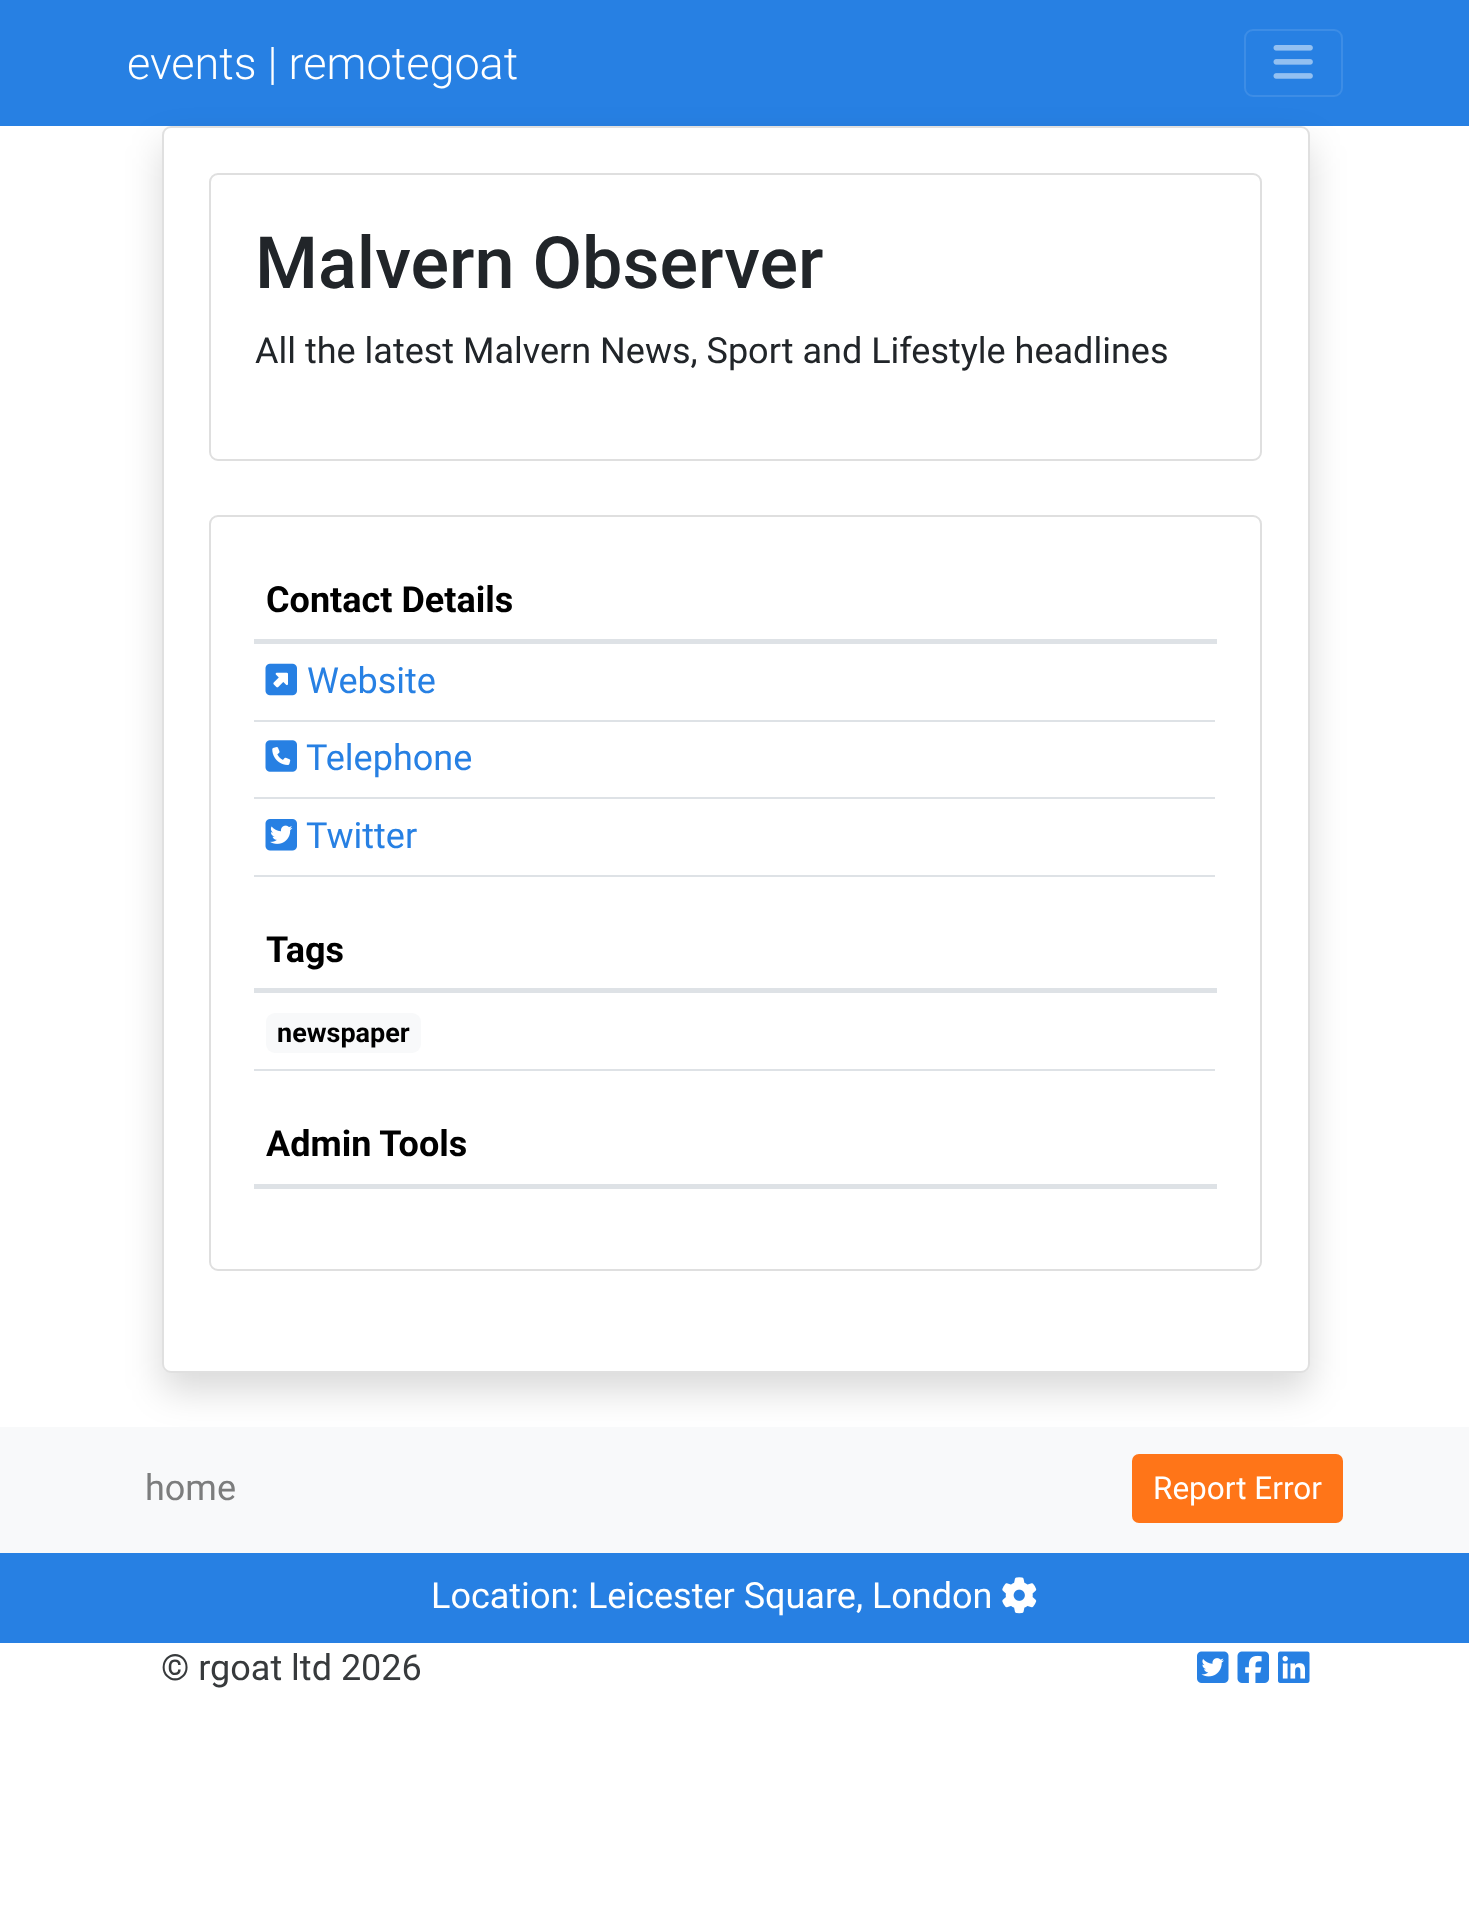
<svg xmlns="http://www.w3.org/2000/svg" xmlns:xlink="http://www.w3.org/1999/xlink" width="1469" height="1929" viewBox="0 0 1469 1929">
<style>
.cls-1{font:300 45px Roboto;fill:#ffffff}
.cls-2{font:500 72px Roboto;fill:#212529}
.cls-3{font:36px Roboto;fill:#212529}
.cls-4{font:bold 36px Roboto;fill:#000000}
.cls-5{font:36px Roboto;fill:#2780e3}
.cls-6{font:bold 27px Roboto;fill:#000000}
.cls-7{font:36px Roboto;fill:#7c7d7d}
.cls-8{font:31.5px Roboto;fill:#ffffff}
.cls-9{font:36px Roboto;fill:#ffffff}
.cls-10{font:36px Roboto;fill:#373a3c}
</style>
<rect width="100%" height="100%" fill="#ffffff"/>
<rect fill="#2780e3" x="0" y="0" width="1469" height="126"/>
<rect fill="none" stroke="#3d8de6" stroke-width="2" x="1245" y="30" width="97" height="66" rx="8"/>
<image xlink:href="image0.png" x="1273" y="45" width="40" height="34"/>
<rect fill="#000000" fill-opacity="0.15" filter="blur(18px)" x="162" y="144" width="1148" height="1247" rx="9"/>
<rect fill="#ffffff" x="162" y="126" width="1148" height="1247" rx="9"/>
<rect fill="none" stroke="#000000" stroke-opacity="0.12" stroke-width="2" x="163" y="127" width="1146" height="1245" rx="8"/>
<rect fill="none" stroke="#dfdfdf" stroke-width="2" x="210" y="174" width="1051" height="286" rx="8"/>
<rect fill="none" stroke="#dfdfdf" stroke-width="2" x="210" y="516" width="1051" height="754" rx="8"/>
<rect fill="#dee2e6" x="254" y="639" width="963" height="5"/>
<image xlink:href="image1.png" x="265" y="663" width="32" height="33"/>
<rect fill="#dee2e6" x="254" y="720" width="961" height="2"/>
<image xlink:href="image2.png" x="265" y="740" width="32" height="32"/>
<rect fill="#dee2e6" x="254" y="797" width="961" height="2"/>
<rect fill="#dee2e6" x="254" y="875" width="961" height="2"/>
<image xlink:href="image3.png" x="265" y="819" width="32" height="32"/>
<rect fill="#dee2e6" x="254" y="988" width="963" height="5"/>
<rect fill="#dee2e6" x="254" y="1069" width="961" height="2"/>
<rect fill="#f8f9fa" x="266" y="1013" width="155" height="40" rx="9"/>
<rect fill="#dee2e6" x="254" y="1184" width="963" height="5"/>
<rect fill="#f8f9fa" x="0" y="1427" width="1469" height="126"/>
<rect fill="#ff7518" stroke="#ff7518" stroke-width="2" x="1133" y="1455" width="209" height="67" rx="6"/>
<rect fill="#2780e3" x="0" y="1553" width="1469" height="90"/>
<image xlink:href="image4.png" x="1002" y="1577" width="35" height="37"/>
<image xlink:href="image5.png" x="1197" y="1651" width="32" height="32"/>
<image xlink:href="image6.png" x="1237" y="1651" width="32" height="32"/>
<image xlink:href="image7.png" x="1278" y="1651" width="32" height="32"/>
<text class="cls-1" x="127" y="79">events | remotegoat</text>
<text class="cls-2" x="255" y="288">Malvern Observer</text>
<text class="cls-3" x="255" y="363">All the latest Malvern News, Sport and Lifestyle headlines</text>
<text class="cls-4" x="266" y="612">Contact Details</text>
<text class="cls-5" x="307" y="693">Website</text>
<text class="cls-5" x="306" y="770">Telephone</text>
<text class="cls-5" x="306" y="848">Twitter</text>
<text class="cls-4" x="266" y="962">Tags</text>
<text class="cls-6" x="277" y="1042">newspaper</text>
<text class="cls-4" x="266" y="1156">Admin Tools</text>
<text class="cls-7" x="145" y="1500">home</text>
<text class="cls-8" x="1153" y="1499">Report Error</text>
<text class="cls-9" x="431" y="1608">Location: Leicester Square, London</text>
<text class="cls-10" x="161" y="1680">© rgoat ltd 2026</text>
</svg>
